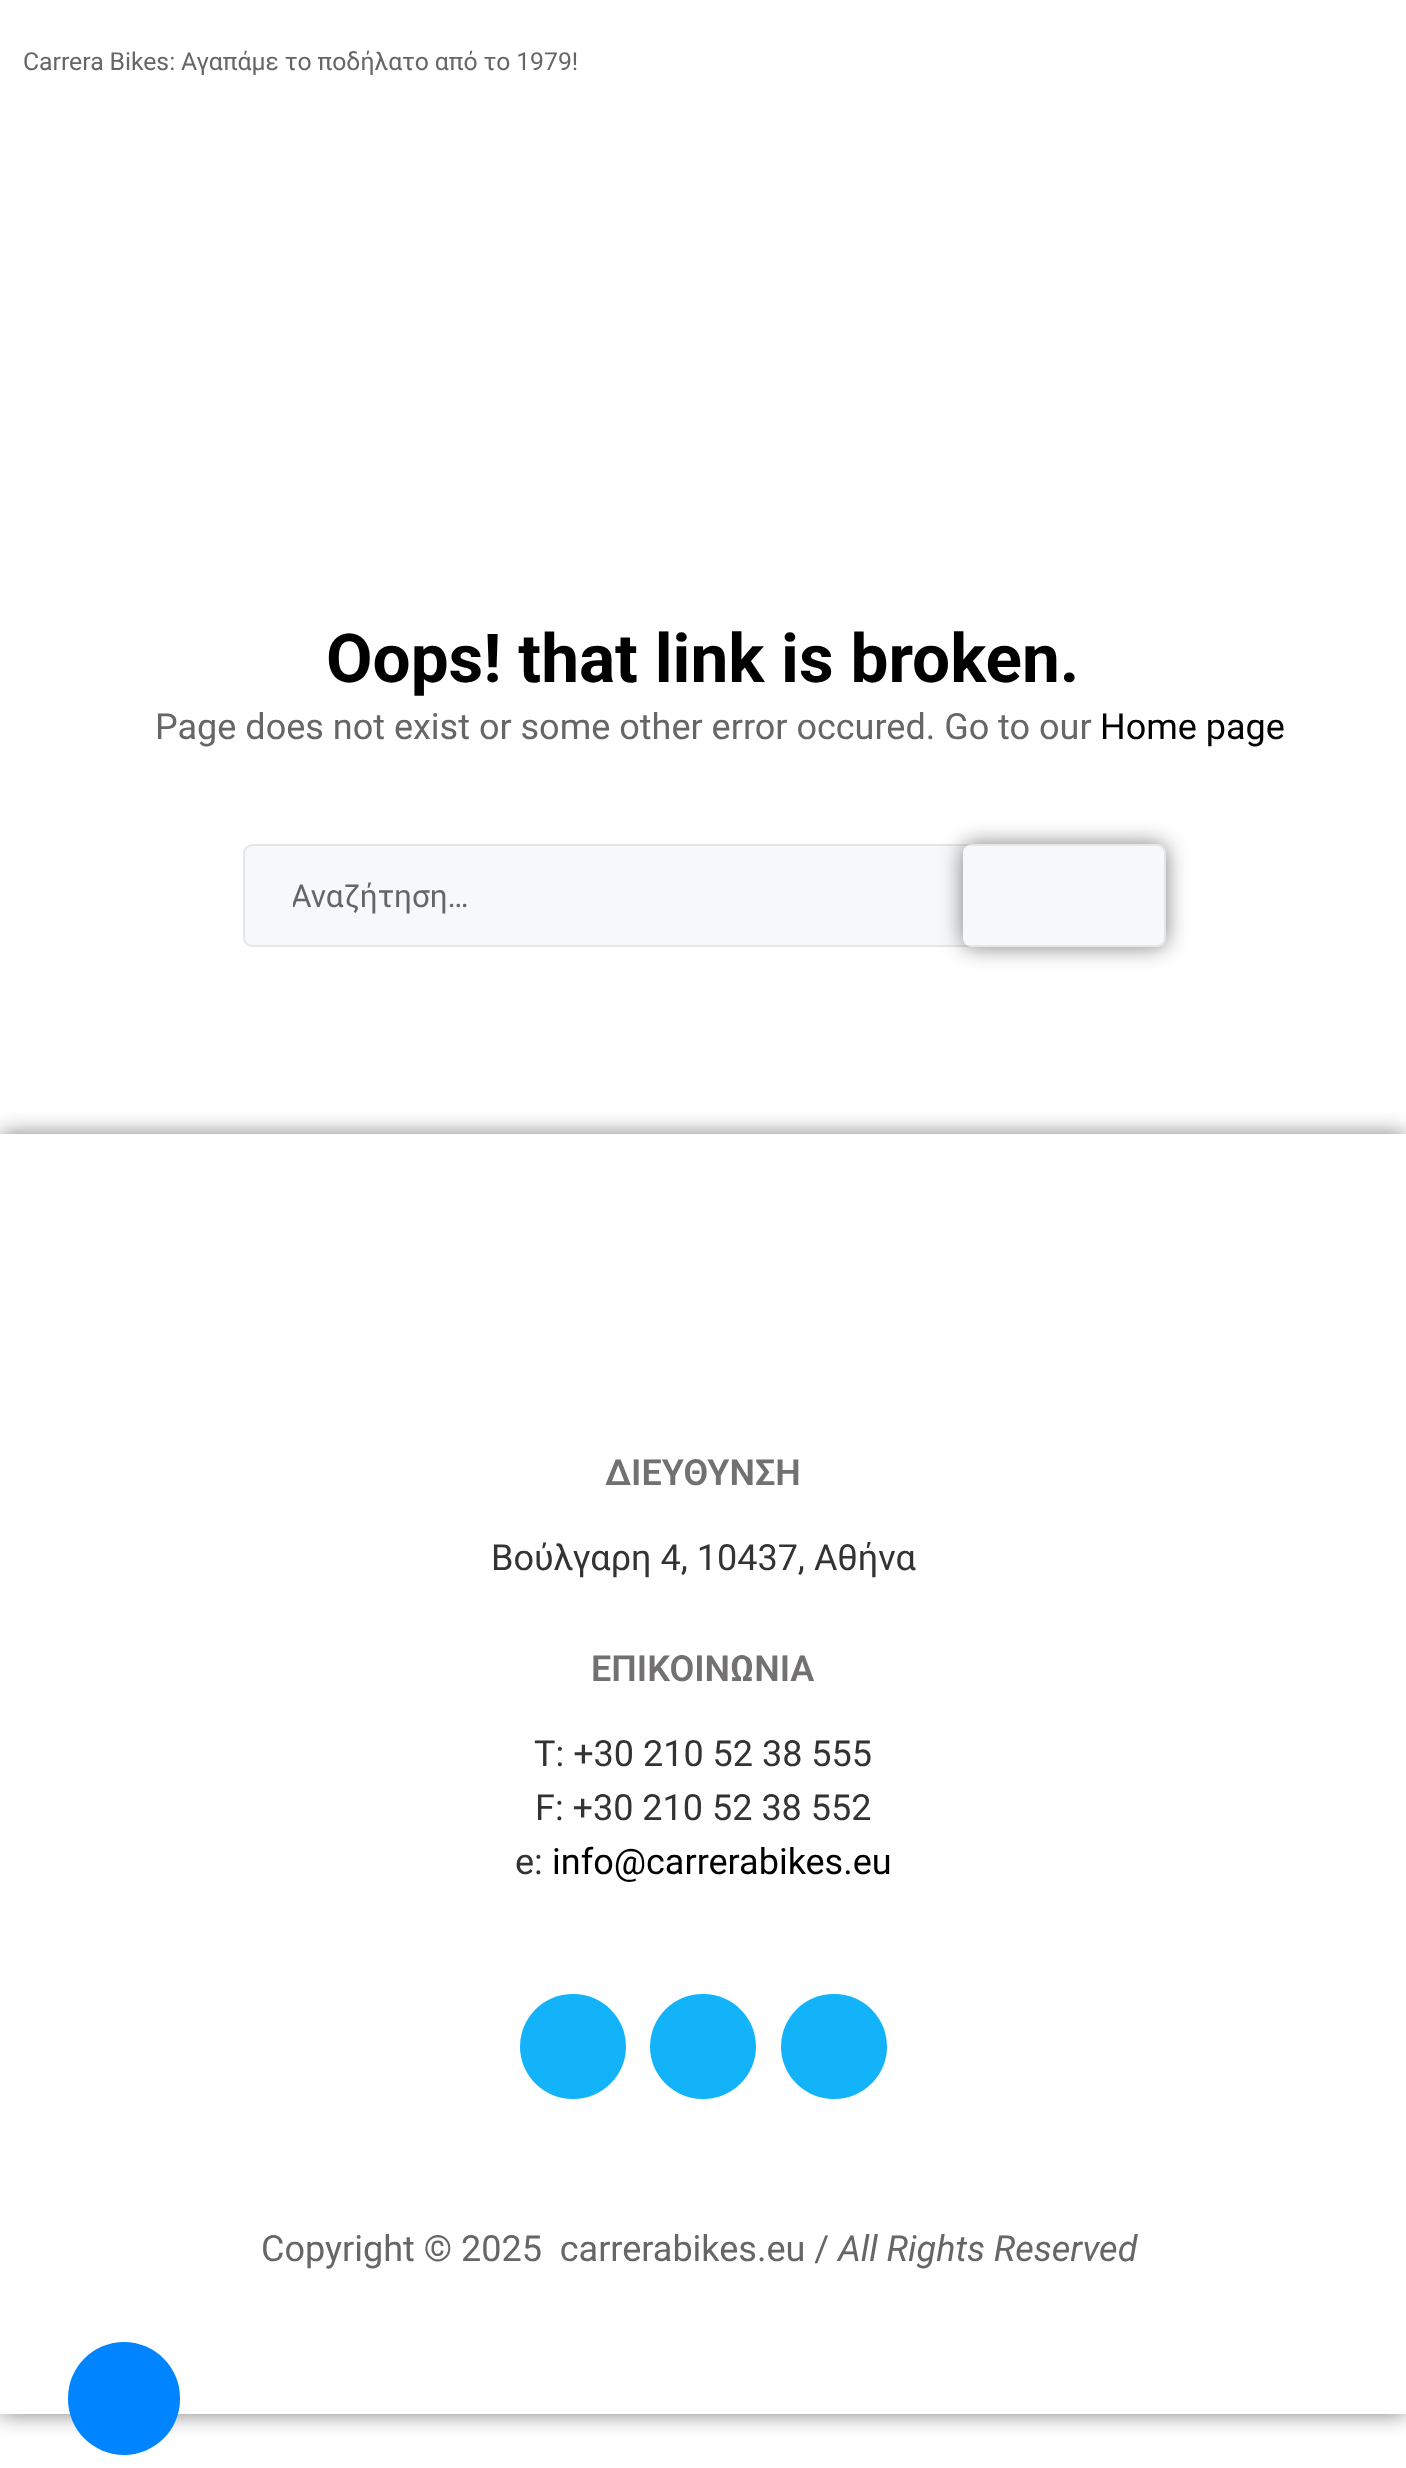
<svg xmlns="http://www.w3.org/2000/svg" xmlns:xlink="http://www.w3.org/1999/xlink" width="1406" height="2468" viewBox="0 0 1406 2468">
<style>
.cls-1{font:24.75px Roboto;fill:#666666}
.cls-2{font:bold 67.5px Roboto;fill:#000000}
.cls-3{font:36px Roboto;fill:#666666}
.cls-4{font:36px Roboto;fill:#000000}
.cls-5{font:31.5px Roboto;fill:#666666}
.cls-6{font:600 36px Roboto;fill:#727070}
.cls-7{font:36px Roboto;fill:#333333}
.cls-8{font:italic 36px Roboto;fill:#666666}
</style>
<defs>
<clipPath id="clip1"><path d="M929 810H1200V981H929ZM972 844H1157C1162 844 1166 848 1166 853V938C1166 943 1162 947 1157 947H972C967 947 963 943 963 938V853C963 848 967 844 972 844Z" clip-rule="evenodd"/></clipPath>
<clipPath id="clip2"><rect x="293" y="878" width="726" height="36"/></clipPath>
</defs>
<rect width="100%" height="100%" fill="#ffffff"/>
<rect fill="#f7f8fa" stroke="#e6e6e6" stroke-width="2" x="244" y="845" width="921" height="101" rx="8"/>
<g clip-path="url(#clip1)">
<rect fill="#000000" fill-opacity="0.5" filter="blur(11px)" x="963" y="844" width="203" height="103" rx="9"/>
</g>
<rect fill="#000000" fill-opacity="0.5" filter="blur(11px)" x="0" y="1134" width="1406" height="1280"/>
<rect fill="#ffffff" x="0" y="1134" width="1406" height="1280"/>
<rect fill="#12b3f8" x="520" y="1994" width="106" height="105" rx="52.5"/>
<rect fill="#12b3f8" x="650" y="1994" width="106" height="105" rx="52.5"/>
<rect fill="#12b3f8" x="781" y="1994" width="106" height="105" rx="52.5"/>
<rect fill="#0084ff" x="68" y="2342" width="112" height="113" rx="56"/>
<text class="cls-1" x="23" y="70" word-spacing="-0.25">Carrera Bikes: Αγαπάμε το ποδήλατο από το 1979!</text>
<text class="cls-2" x="326" y="682">Oops! that link is broken.</text>
<text class="cls-3" x="155" y="739">Page does not exist or some other error occured. Go to our</text>
<text class="cls-4" x="1100" y="739">Home page</text>
<g clip-path="url(#clip2)">
<text class="cls-5" x="291" y="907">Αναζήτηση…</text>
</g>
<text class="cls-6" x="605" y="1485">ΔΙΕΥΘΥΝΣΗ</text>
<text class="cls-7" x="491" y="1570">Βούλγαρη 4, 10437, Αθήνα</text>
<text class="cls-6" x="591" y="1681">ΕΠΙΚΟΙΝΩΝΙΑ</text>
<text class="cls-7" x="534" y="1766">Τ: +30 210 52 38 555</text>
<text class="cls-7" x="535" y="1820">F: +30 210 52 38 552</text>
<text class="cls-7" x="515" y="1874">e:</text>
<text class="cls-4" x="552" y="1874">info@carrerabikes.eu</text>
<text class="cls-3" xml:space="preserve" x="261" y="2261">Copyright © 2025  carrerabikes.eu /</text>
<text class="cls-8" x="838" y="2261">All Rights Reserved</text>
</svg>
